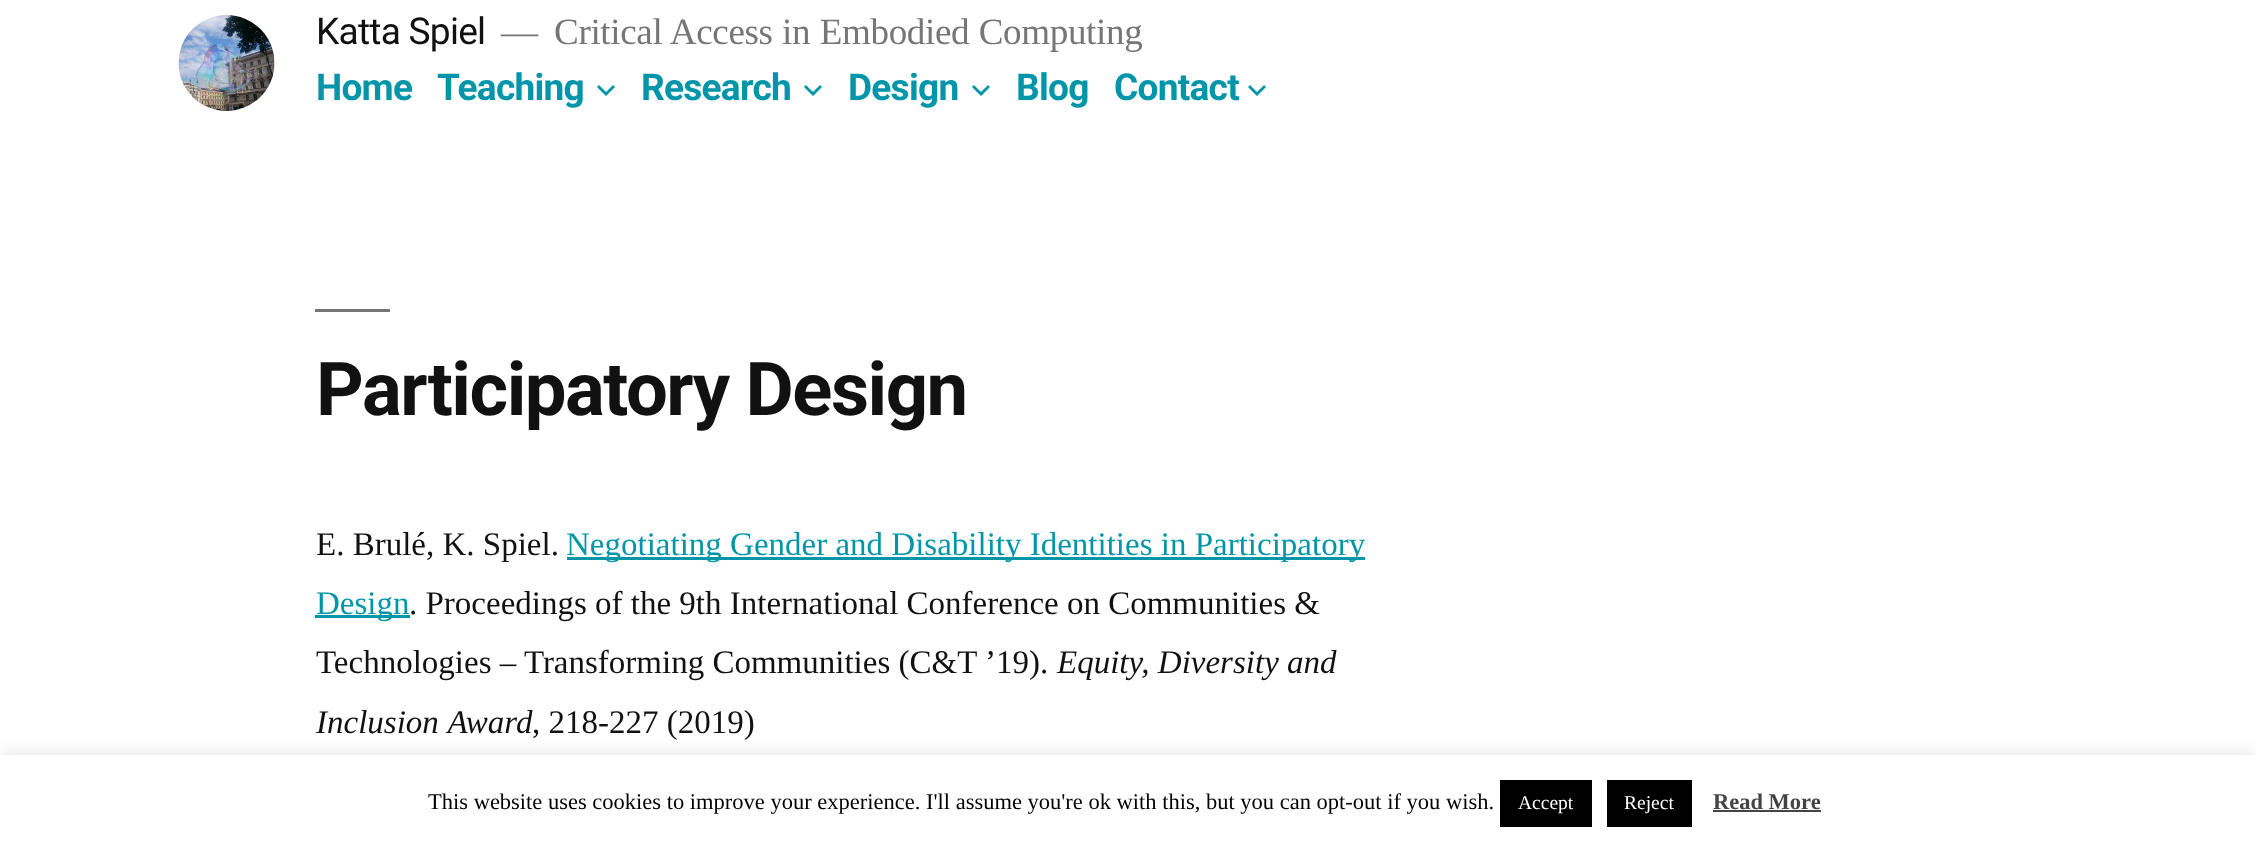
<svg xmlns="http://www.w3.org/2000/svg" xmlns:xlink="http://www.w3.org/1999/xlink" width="2256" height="852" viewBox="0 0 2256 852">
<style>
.cls-1{font:37.1px Roboto;letter-spacing:-0.75px;fill:#111111}
.cls-2{font:37.1px Liberation Serif;letter-spacing:-0.35px;fill:#767676}
.cls-3{font:bold 37.1px Roboto;letter-spacing:-0.75px;fill:#0095a8}
.cls-4{font:bold 74.25px Roboto;letter-spacing:-1.5px;fill:#111111}
.cls-5{font:33px Liberation Serif;fill:#111111}
.cls-6{font:33px Liberation Serif;fill:#0095a8}
.cls-7{font:italic 33px Liberation Serif;fill:#111111}
.cls-8{font:22.5px Liberation Serif;fill:#000000}
.cls-9{font:19.5px Liberation Serif;fill:#ffffff}
.cls-10{font:bold 22.5px Liberation Serif;fill:#444444}
</style>
<rect width="100%" height="100%" fill="#ffffff"/>
<image xlink:href="image0.png" x="178" y="15" width="97" height="96"/>
<path fill="#0095a8" d="M599 85L606 92L613 85L615 87L606 96L597 87Z"/>
<path fill="#0095a8" d="M806 85L813 92L820 85L822 87L813 96L804 87Z"/>
<path fill="#0095a8" d="M974 85L981 92L988 85L990 87L981 96L972 87Z"/>
<path fill="#0095a8" d="M1250 85L1257 92L1264 85L1266 87L1257 96L1248 87Z"/>
<rect fill="#767676" x="315" y="309" width="75" height="3"/>
<rect fill="#0095a8" x="567" y="557" width="798" height="3"/>
<rect fill="#0095a8" x="315" y="615" width="95" height="3"/>
<rect fill="#acabab" fill-opacity="0.3" filter="blur(7.5px)" x="0" y="753" width="2256" height="98"/>
<rect fill="#ffffff" x="0" y="755" width="2256" height="97"/>
<rect fill="#000000" x="1500" y="780" width="92" height="47"/>
<rect fill="#000000" x="1607" y="780" width="85" height="47"/>
<rect fill="#444444" x="1713" y="810" width="108" height="2"/>
<text class="cls-1" x="316" y="44">Katta Spiel</text>
<text class="cls-2" x="501" y="44">—</text>
<text class="cls-2" x="554" y="44" word-spacing="0.5">Critical Access in Embodied Computing</text>
<text class="cls-3" x="316" y="100">Home</text>
<text class="cls-3" x="437" y="100">Teaching</text>
<text class="cls-3" x="641" y="100">Research</text>
<text class="cls-3" x="848" y="100">Design</text>
<text class="cls-3" x="1016" y="100">Blog</text>
<text class="cls-3" x="1114" y="100">Contact</text>
<text class="cls-4" x="316" y="415">Participatory Design</text>
<text class="cls-5" x="316" y="555">E. Brulé, K. Spiel.</text>
<text class="cls-6" x="566" y="555">Negotiating Gender and Disability Identities in Participatory</text>
<text class="cls-6" x="316" y="614">Design</text>
<text class="cls-5" x="409" y="614">. Proceedings of the 9th International Conference on Communities &amp;</text>
<text class="cls-5" x="316" y="673">Technologies – Transforming Communities (C&amp;T ’19).</text>
<text class="cls-7" x="1057" y="673">Equity, Diversity and</text>
<text class="cls-7" x="316" y="733" word-spacing="1">Inclusion Award</text>
<text class="cls-5" x="532" y="733">, 218-227 (2019)</text>
<text class="cls-8" x="428" y="809">This website uses cookies to improve your experience. I'll assume you're ok with this, but you can opt-out if you wish.</text>
<text class="cls-9" x="1518" y="809">Accept</text>
<text class="cls-9" x="1624" y="809">Reject</text>
<text class="cls-10" x="1713" y="809">Read More</text>
</svg>
